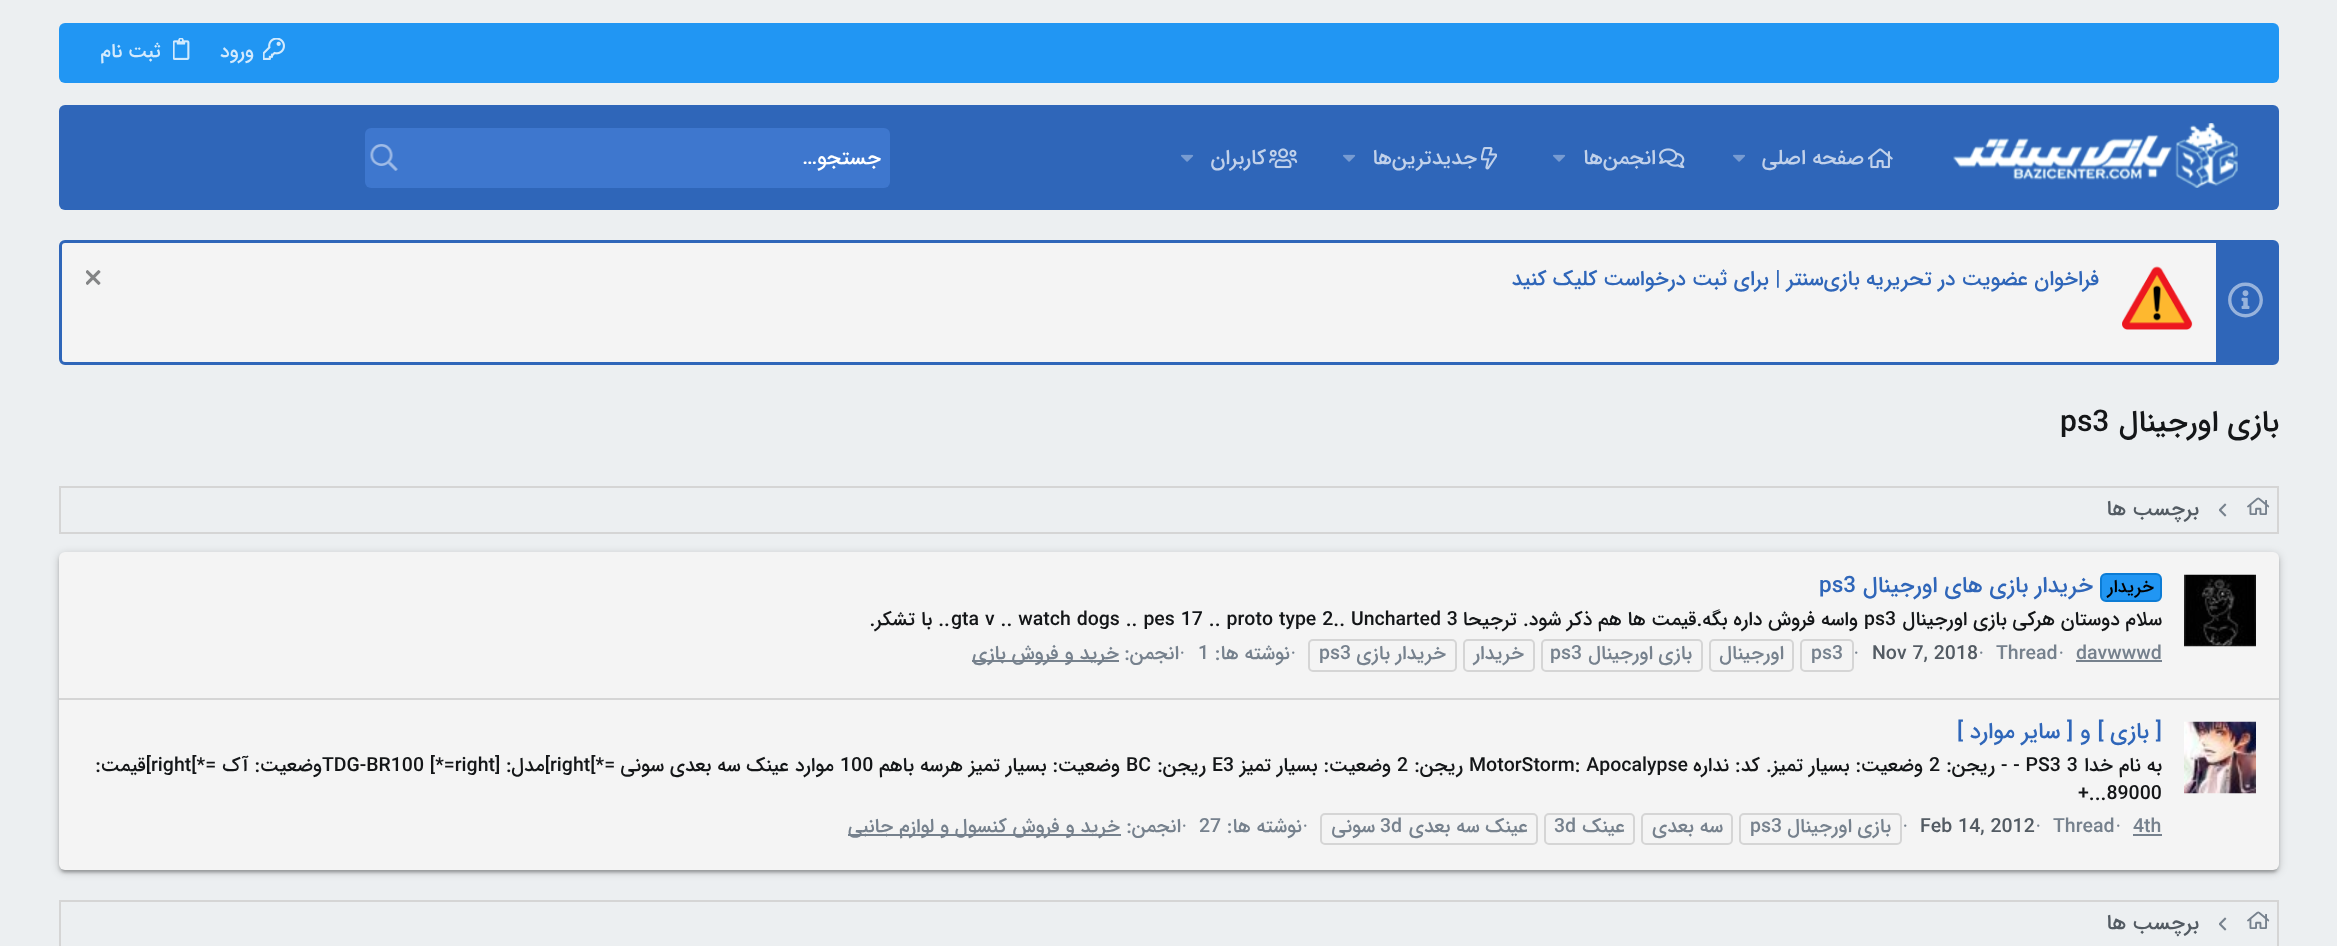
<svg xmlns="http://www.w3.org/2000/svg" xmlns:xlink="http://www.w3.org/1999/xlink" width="2337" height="946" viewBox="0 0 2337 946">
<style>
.cls-1{font:500 19.5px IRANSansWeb;direction:rtl;fill:#d3eafd}
.cls-2{font:500 21px IRANSansWeb;direction:rtl;fill:#c1d1ea}
.cls-3{font:500 21px IRANSansWeb;direction:rtl;fill:#ffffff}
.cls-4{font:500 21px IRANSansWeb;direction:rtl;fill:#2f66b9}
.cls-5{font:500 30px IRANSansWeb;direction:rtl;fill:#141618}
.cls-6{font:500 30px IRANSansWeb;fill:#141618}
.cls-7{font:500 21px IRANSansWeb;direction:rtl;fill:#535b63}
.cls-8{font:500 18px IRANSansWeb;direction:rtl;fill:#000000}
.cls-9{font:500 22.5px IRANSansWeb;direction:rtl;fill:#2f66b9}
.cls-10{font:500 22.5px IRANSansWeb;fill:#2f66b9}
.cls-11{font:500 19.5px IRANSansWeb;direction:rtl;fill:#141618}
.cls-12{font:500 19.5px IRANSansWeb;fill:#141618}
.cls-13{font:500 19.5px IRANSansWeb;fill:#76818d}
.cls-14{font:19.5px Liberation Serif;fill:#76818d}
.cls-15{font:500 19.5px IRANSansWeb;fill:#535b63}
.cls-16{font:500 19.5px IRANSansWeb;direction:rtl;fill:#76818d}
</style>
<rect width="100%" height="100%" fill="#eceff1"/>
<rect fill="#2196f3" x="59" y="23" width="2220" height="60" rx="6"/>
<image xlink:href="image0.png" x="263" y="38" width="22" height="22"/>
<image xlink:href="image1.png" x="173" y="38" width="17" height="22"/>
<rect fill="#2f66b9" x="59" y="105" width="2220" height="105" rx="6"/>
<image xlink:href="image2.png" x="1953" y="123" width="285" height="65"/>
<image xlink:href="image3.png" x="1868" y="148" width="25" height="21"/>
<image xlink:href="image4.png" x="1733" y="154" width="12" height="8"/>
<image xlink:href="image5.png" x="1659" y="148" width="26" height="21"/>
<image xlink:href="image6.png" x="1553" y="154" width="13" height="8"/>
<image xlink:href="image7.png" x="1481" y="147" width="16" height="23"/>
<image xlink:href="image6.png" x="1343" y="154" width="13" height="8"/>
<image xlink:href="image8.png" x="1269" y="148" width="29" height="21"/>
<image xlink:href="image6.png" x="1181" y="154" width="13" height="8"/>
<rect fill="#3e77ce" x="365" y="128" width="525" height="60" rx="6"/>
<image xlink:href="image9.png" x="370" y="144" width="28" height="27"/>
<rect fill="#f4f4f4" stroke="#2f66b9" stroke-width="3" x="60.5" y="241.5" width="2217" height="122" rx="4.5"/>
<rect fill="#2f66b9" x="2216" y="243" width="60" height="119"/>
<image xlink:href="image10.png" x="2228" y="282" width="35" height="36"/>
<image xlink:href="image11.png" x="2122" y="266" width="71" height="64"/>
<image xlink:href="image12.png" x="86" y="270" width="15" height="15"/>
<rect fill="none" stroke="#d5d5d5" stroke-width="2" x="60" y="487" width="2218" height="46"/>
<image xlink:href="image13.png" x="2247" y="497" width="23" height="18"/>
<image xlink:href="image14.png" x="2219" y="503" width="8" height="14"/>
<rect fill="#000000" fill-opacity="0.2" filter="blur(4px)" x="59" y="554" width="2220" height="318" rx="6"/>
<rect fill="#000000" fill-opacity="0.12" filter="blur(1px)" x="62" y="560" width="2214" height="312" rx="3"/>
<rect fill="#000000" fill-opacity="0.14" filter="blur(1.5px)" x="59" y="555" width="2220" height="318" rx="6"/>
<rect fill="#f4f4f4" x="59" y="552" width="2220" height="318" rx="6"/>
<image xlink:href="image15.png" x="2184" y="574" width="72" height="73"/>
<rect fill="#2196f3" stroke="#0c7cd5" stroke-width="2" x="2101" y="574" width="60" height="27" rx="5"/>
<rect fill="#76818d" x="2076" y="660" width="86" height="2"/>
<rect fill="none" stroke="#d5d5d5" stroke-width="2" x="1801" y="640" width="52" height="31" rx="4"/>
<rect fill="none" stroke="#d5d5d5" stroke-width="2" x="1710" y="640" width="83" height="31" rx="4"/>
<rect fill="none" stroke="#d5d5d5" stroke-width="2" x="1542" y="640" width="160" height="31" rx="4"/>
<rect fill="none" stroke="#d5d5d5" stroke-width="2" x="1464" y="640" width="70" height="31" rx="4"/>
<rect fill="none" stroke="#d5d5d5" stroke-width="2" x="1309" y="640" width="147" height="31" rx="4"/>
<rect fill="#76818d" x="972" y="660" width="147" height="2"/>
<rect fill="#d5d5d5" x="59" y="698" width="2220" height="2"/>
<image xlink:href="image16.png" x="2184" y="721" width="72" height="73"/>
<rect fill="#76818d" x="2133" y="834" width="29" height="2"/>
<rect fill="none" stroke="#d5d5d5" stroke-width="2" x="1740" y="814" width="161" height="30" rx="4"/>
<rect fill="none" stroke="#d5d5d5" stroke-width="2" x="1642" y="814" width="90" height="30" rx="4"/>
<rect fill="none" stroke="#d5d5d5" stroke-width="2" x="1545" y="814" width="89" height="30" rx="4"/>
<rect fill="none" stroke="#d5d5d5" stroke-width="2" x="1321" y="814" width="216" height="30" rx="4"/>
<rect fill="#76818d" x="848" y="834" width="273" height="2"/>
<rect fill="none" stroke="#d5d5d5" stroke-width="2" x="60" y="901" width="2218" height="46"/>
<image xlink:href="image17.png" x="2247" y="911" width="23" height="18"/>
<image xlink:href="image14.png" x="2219" y="917" width="8" height="14"/>
<text class="cls-1" x="254" y="57">ورود</text>
<text class="cls-1" x="161" y="57">ثبت نام</text>
<text class="cls-2" x="1864" y="164">صفحه اصلی</text>
<text class="cls-2" x="1656" y="164">انجمن‌ها</text>
<text class="cls-2" x="1477" y="164">جدیدترین‌ها</text>
<text class="cls-2" x="1266" y="164">کاربران</text>
<text class="cls-3" x="881" y="164">جستجو…</text>
<text class="cls-4" x="2099" y="285">فراخوان عضویت در تحریریه بازی‌سنتر | برای ثبت درخواست کلیک کنید</text>
<text class="cls-5" x="2279" y="431">بازی اورجینال</text>
<text class="cls-6" x="2060" y="431">ps3</text>
<text class="cls-7" x="2199" y="515">برچسب ها</text>
<text class="cls-8" x="2154" y="592">خریدار</text>
<text class="cls-9" x="2093" y="592">خریدار بازی های اورجینال</text>
<text class="cls-10" x="1819" y="592">ps3</text>
<text class="cls-11" x="2162" y="625">سلام دوستان هرکی بازی اورجینال</text>
<text class="cls-12" x="1864" y="625">ps3</text>
<text class="cls-11" x="1858" y="625">واسه فروش داره بگه.قیمت ها هم ذکر شود. ترجیحا</text>
<text class="cls-12" x="951" y="625">gta v .. watch dogs .. pes 17 .. proto type 2.. Uncharted 3</text>
<text class="cls-11" x="950" y="625">.. با تشکر.</text>
<text class="cls-13" x="2076" y="659">davwwwd</text>
<text class="cls-14" x="2058" y="659">·</text>
<text class="cls-13" x="1996" y="659">Thread</text>
<text class="cls-14" x="1978" y="659">·</text>
<text class="cls-15" x="1872" y="659">Nov 7, 2018</text>
<text class="cls-14" x="1853" y="659">·</text>
<text class="cls-13" x="1811" y="659">ps3</text>
<text class="cls-16" x="1784" y="659">اورجینال</text>
<text class="cls-16" x="1692" y="659">بازی</text>
<text class="cls-16" x="1653" y="659">اورجینال</text>
<text class="cls-13" x="1550" y="659">ps3</text>
<text class="cls-16" x="1524" y="659">خریدار</text>
<text class="cls-16" x="1446" y="659">خریدار</text>
<text class="cls-16" x="1390" y="659">بازی</text>
<text class="cls-13" x="1319" y="659">ps3</text>
<text class="cls-14" x="1290" y="659">·</text>
<text class="cls-16" x="1290" y="659">نوشته ها:</text>
<text class="cls-13" x="1198" y="659">1</text>
<text class="cls-14" x="1179" y="659">·</text>
<text class="cls-16" x="1179" y="659">انجمن:</text>
<text class="cls-16" x="1119" y="659">خرید و فروش بازی</text>
<text class="cls-9" x="2162" y="738">[ بازی ] و [ سایر موارد ]</text>
<text class="cls-11" x="2162" y="771">به نام خدا</text>
<text class="cls-12" x="2001" y="771">- - PS3 3</text>
<text class="cls-11" x="1995" y="771">ریجن:</text>
<text class="cls-12" x="1929" y="771">2</text>
<text class="cls-11" x="1923" y="771">وضعیت: بسیار تمیز.</text>
<text class="cls-11" x="1760" y="771">کد: نداره</text>
<text class="cls-12" x="1469" y="771">MotorStorm: Apocalypse</text>
<text class="cls-11" x="1463" y="771">ریجن:</text>
<text class="cls-12" x="1397" y="771">2</text>
<text class="cls-11" x="1391" y="771">وضعیت: بسیار تمیز</text>
<text class="cls-12" x="1212" y="771">E3</text>
<text class="cls-11" x="1206" y="771">ریجن:</text>
<text class="cls-12" x="1126" y="771">BC</text>
<text class="cls-11" x="1120" y="771">وضعیت: بسیار تمیز</text>
<text class="cls-11" x="963" y="771">هرسه باهم</text>
<text class="cls-12" x="840" y="771">100</text>
<text class="cls-11" x="834" y="771">موارد</text>
<text class="cls-11" x="789" y="771">عینک سه بعدی سونی</text>
<text class="cls-12" x="550" y="771">right[*=</text>
<text class="cls-11" x="550" y="771">]مدل:</text>
<text class="cls-12" x="322" y="771">TDG-BR100 [*=right]</text>
<text class="cls-11" x="322" y="771">وضعیت: آک</text>
<text class="cls-12" x="151" y="771">right[*=</text>
<text class="cls-11" x="151" y="771">]قیمت:</text>
<text class="cls-12" x="2078" y="799">+...89000</text>
<text class="cls-13" x="2133" y="832">4th</text>
<text class="cls-14" x="2115" y="832">·</text>
<text class="cls-13" x="2053" y="832">Thread</text>
<text class="cls-14" x="2035" y="832">·</text>
<text class="cls-15" x="1920" y="832">Feb 14, 2012</text>
<text class="cls-14" x="1902" y="832">·</text>
<text class="cls-16" x="1891" y="832">بازی</text>
<text class="cls-16" x="1852" y="832">اورجینال</text>
<text class="cls-13" x="1750" y="832">ps3</text>
<text class="cls-16" x="1723" y="832">سه بعدی</text>
<text class="cls-16" x="1625" y="832">عینک</text>
<text class="cls-13" x="1554" y="832">3d</text>
<text class="cls-16" x="1528" y="832">عینک سه بعدی</text>
<text class="cls-13" x="1380" y="832">3d</text>
<text class="cls-16" x="1375" y="832">سونی</text>
<text class="cls-14" x="1302" y="832">·</text>
<text class="cls-16" x="1302" y="832">نوشته ها:</text>
<text class="cls-13" x="1199" y="832">27</text>
<text class="cls-14" x="1181" y="832">·</text>
<text class="cls-16" x="1181" y="832">انجمن:</text>
<text class="cls-16" x="1120" y="832">خرید و فروش کنسول و لوازم جانبی</text>
<text class="cls-7" x="2199" y="929">برچسب ها</text>
</svg>
